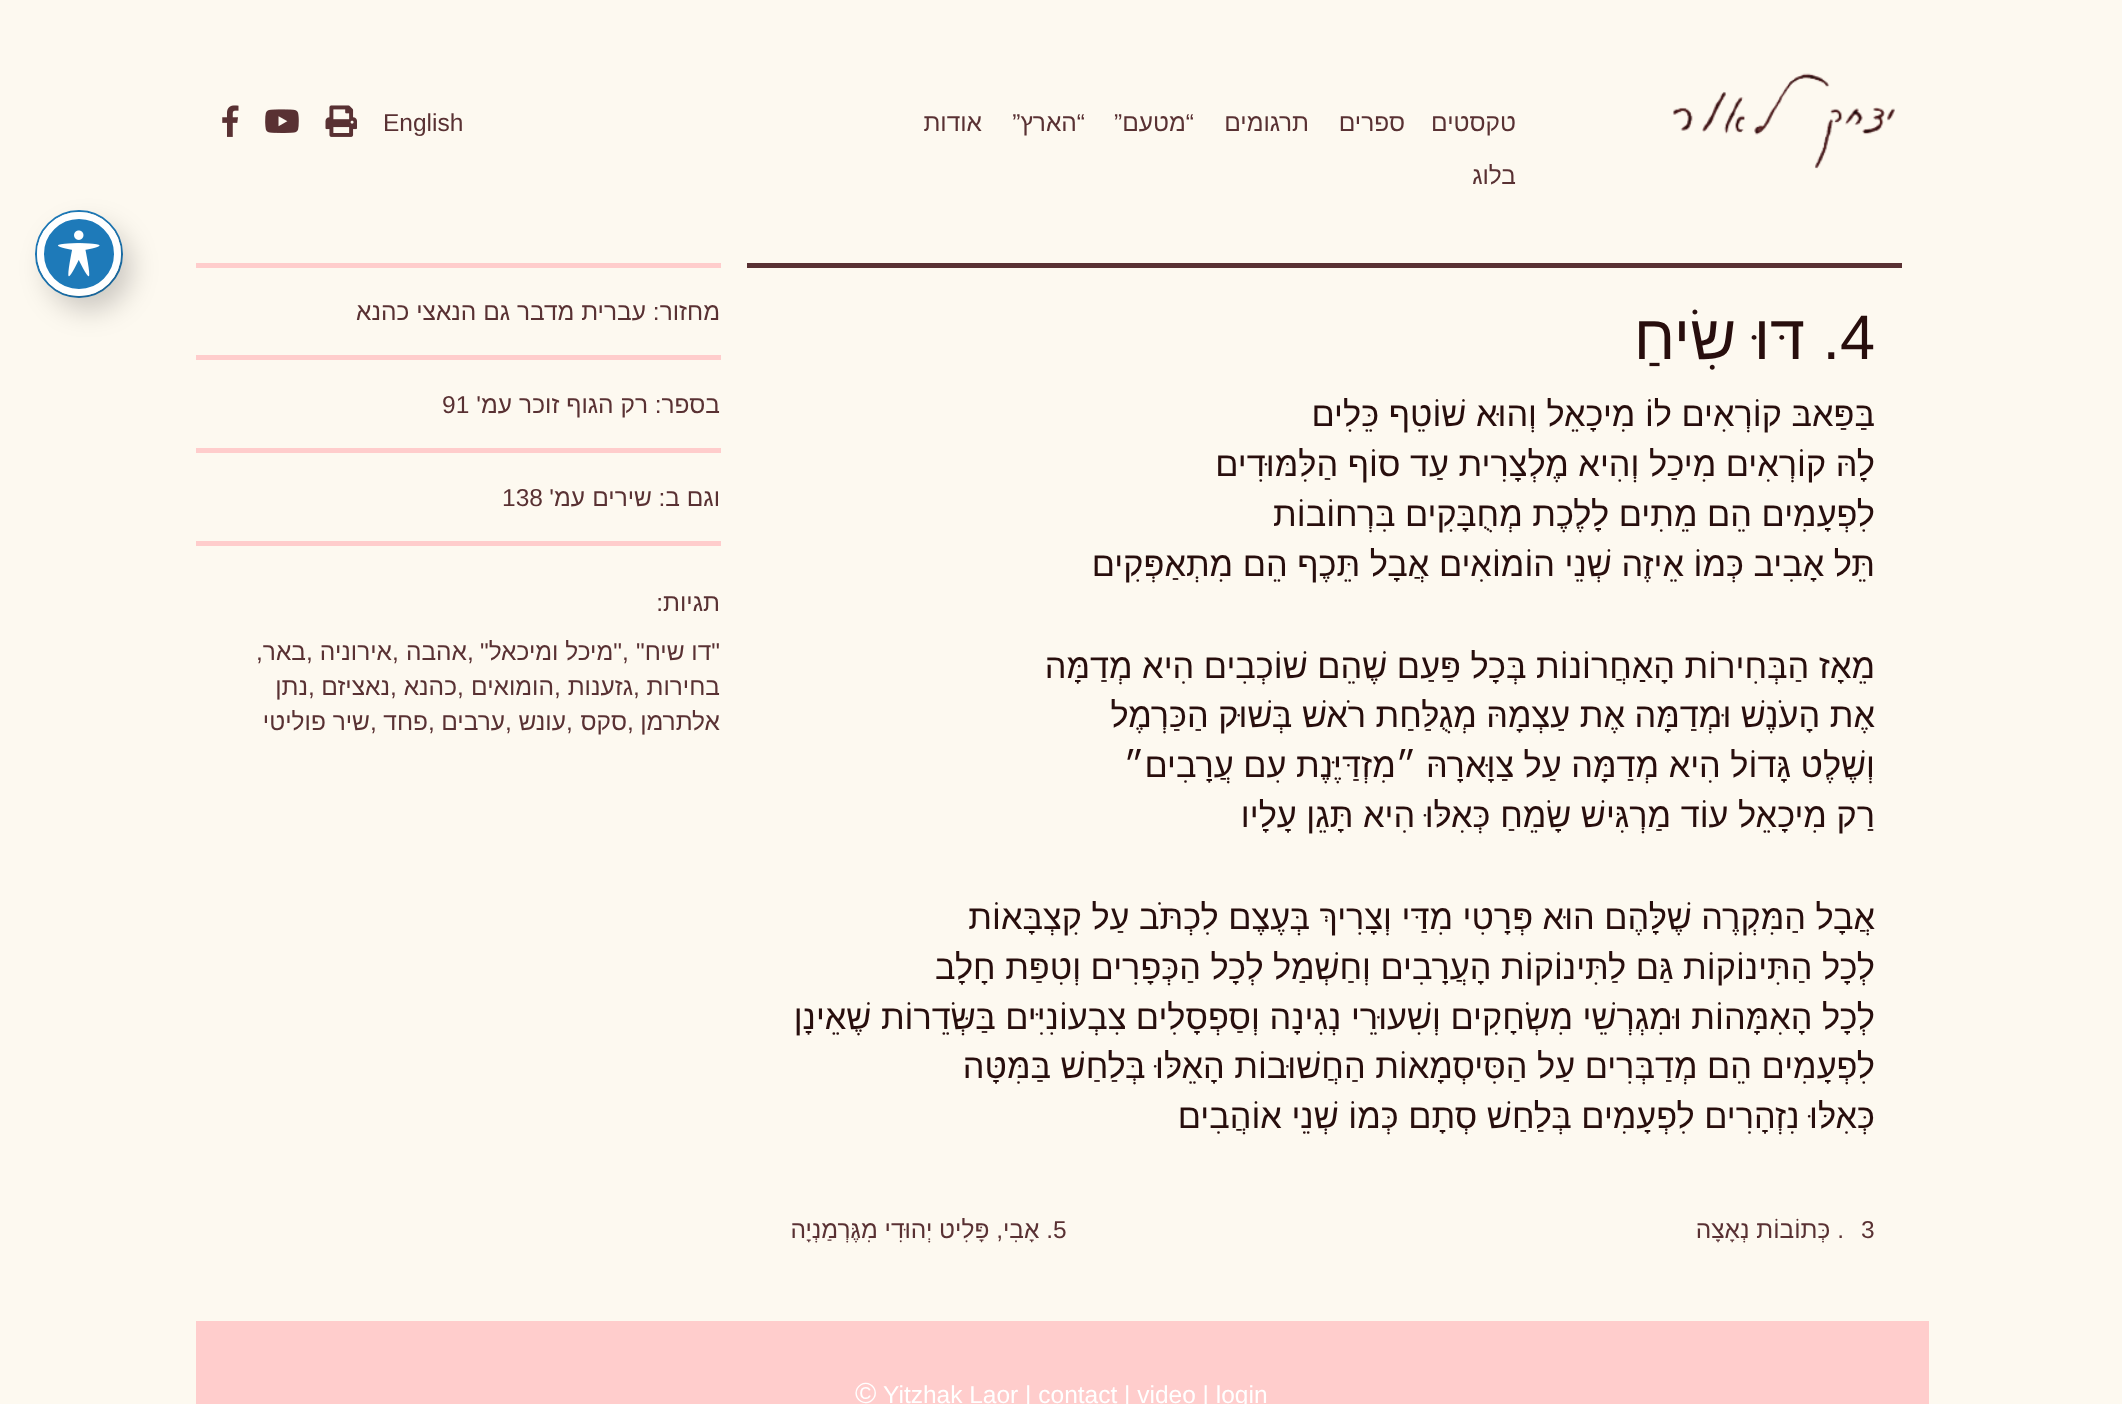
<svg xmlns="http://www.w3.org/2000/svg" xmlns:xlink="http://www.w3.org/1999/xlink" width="2122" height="1404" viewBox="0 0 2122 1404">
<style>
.cls-1{font:24.5px Liberation Sans;direction:rtl;fill:#593133}
.cls-2{font:24.5px Liberation Sans;fill:#593133}
.cls-3{font:63px Liberation Sans;fill:#280e0d}
.cls-4{font:63px Liberation Sans;direction:rtl;fill:#280e0d}
.cls-5{font:34.3px Liberation Sans;direction:rtl;fill:#280e0d}
.cls-6{font:24.5px Liberation Sans;fill:#ffffff}
.cls-7{font:29px Liberation Sans;fill:#ffffff}
</style>
<rect width="100%" height="100%" fill="#fdf9f0"/>
<image xlink:href="image0.png" x="1672" y="73" width="223" height="96"/>
<image xlink:href="image1.png" x="325" y="105" width="32" height="32"/>
<image xlink:href="image2.png" x="265" y="109" width="34" height="24"/>
<image xlink:href="image3.png" x="222" y="105" width="17" height="32"/>
<rect fill="#593133" x="747" y="263" width="1155" height="5"/>
<rect fill="#ffcdcc" x="196" y="263" width="525" height="5"/>
<rect fill="#ffcdcc" x="196" y="355" width="525" height="5"/>
<rect fill="#ffcdcc" x="196" y="448" width="525" height="5"/>
<rect fill="#ffcdcc" x="196" y="541" width="525" height="5"/>
<rect fill="#ffcdcc" x="196" y="1321" width="1733" height="83"/>
<circle fill="none" stroke="#1e7ab9" stroke-width="2" cx="79" cy="254" r="43"/>
<rect fill="#000000" fill-opacity="0.2" filter="blur(14px)" x="47" y="226" width="84" height="84" rx="42"/>
<circle fill="#1e7ab9" stroke="#ffffff" stroke-width="7" cx="79" cy="254" r="38.5"/>
<image xlink:href="image4.png" x="58" y="230" width="42" height="47"/>
<text class="cls-1" x="1516" y="131">טקסטים</text>
<text class="cls-1" x="1405" y="131">ספרים</text>
<text class="cls-1" x="1309" y="131">תרגומים</text>
<text class="cls-1" x="1194" y="131">“מטעם”</text>
<text class="cls-1" x="1085" y="131">“הארץ”</text>
<text class="cls-1" x="982" y="131">אודות</text>
<text class="cls-1" x="1516" y="184">בלוג</text>
<text class="cls-2" x="383" y="131">English</text>
<text class="cls-3" x="1840" y="359">4</text>
<text class="cls-4" x="1840" y="359">. דּוּ שִׂיחַ</text>
<text class="cls-5"><tspan x="1875" y="426">בַּפַּאבּ קוֹרְאִים לוֹ מִיכָאֵל וְהוּא שׁוֹטֵף כֵּלִים</tspan><tspan x="1875" y="476">לָהּ קוֹרְאִים מִיכַל וְהִיא מֶלְצָרִית עַד סוֹף הַלִּמּוּדִים</tspan><tspan x="1875" y="526">לִפְעָמִים הֵם מֵתִים לָלֶכֶת מְחֻבָּקִים בִּרְחוֹבוֹת</tspan><tspan x="1875" y="576">תֵּל אָבִיב כְּמוֹ אֵיזֶה שְׁנֵי הוֹמוֹאִים אֲבָל תֵּכֶף הֵם מִתְאַפְּקִים</tspan></text>
<text class="cls-5"><tspan x="1875" y="678">מֵאָז הַבְּחִירוֹת הָאַחֲרוֹנוֹת בְּכָל פַּעַם שֶׁהֵם שׁוֹכְבִים הִיא מְדַמָּה</tspan><tspan x="1875" y="727">אֶת הָעֹנֶשׁ וּמְדַמָּה אֶת עַצְמָהּ מְגֻלַּחַת רֹאשׁ בְּשׁוּק הַכַּרְמֶל</tspan><tspan x="1875" y="777">וְשֶׁלֶט גָּדוֹל הִיא מְדַמָּה עַל צַוָּארָהּ ״מִזְדַּיֶּנֶת עִם עֲרָבִים״</tspan><tspan x="1875" y="827">רַק מִיכָאֵל עוֹד מַרְגִּישׁ שָׂמֵחַ כְּאִלּוּ הִיא תָּגֵן עָלָיו</tspan></text>
<text class="cls-5"><tspan x="1875" y="929">אֲבָל הַמִּקְרֶה שֶׁלָּהֶם הוּא פְּרָטִי מִדַּי וְצָרִיךְ בְּעֶצֶם לִכְתֹּב עַל קִצְבָּאוֹת</tspan><tspan x="1875" y="979">לְכָל הַתִּינוֹקוֹת גַּם לַתִּינוֹקוֹת הָעֲרָבִים וְחַשְׁמַל לְכָל הַכְּפָרִים וְטִפַּת חָלָב</tspan><tspan x="1875" y="1029">לְכָל הָאִמָּהוֹת וּמִגְרְשֵׁי מִשְׂחָקִים וְשִׁעוּרֵי נְגִינָה וְסַפְסָלִים צִבְעוֹנִיִּים בַּשְּׂדֵרוֹת שֶׁאֵינָן</tspan><tspan x="1875" y="1078">לִפְעָמִים הֵם מְדַבְּרִים עַל הַסִּיסְמָאוֹת הַחֲשׁוּבוֹת הָאֵלּוּ בְּלַחַשׁ בַּמִּטָּה</tspan><tspan x="1875" y="1128">כְּאִלּוּ נִזְהָרִים לִפְעָמִים בְּלַחַשׁ סְתָם כְּמוֹ שְׁנֵי אוֹהֲבִים</tspan></text>
<text class="cls-2" x="1861" y="1238">3</text>
<text class="cls-1" x="1844" y="1238">. כְּתוֹבוֹת נְאָצָה</text>
<text class="cls-2" x="1053" y="1238">5</text>
<text class="cls-1" x="1053" y="1238">. אָבִי, פָּלִיט יְהוּדִי מִגֶּרְמַנְיָה</text>
<text class="cls-1" x="720" y="320">מחזור:</text>
<text class="cls-1" x="646" y="320">עברית מדבר גם הנאצי כהנא</text>
<text class="cls-1" x="720" y="413">בספר:</text>
<text class="cls-1" x="648" y="413">רק הגוף זוכר</text>
<text class="cls-1" x="512" y="413">עמ'</text>
<text class="cls-2" x="442" y="413">91</text>
<text class="cls-1" x="720" y="506">וגם ב:</text>
<text class="cls-1" x="652" y="506">שירים</text>
<text class="cls-1" x="585" y="506">עמ'</text>
<text class="cls-2" x="502" y="506">138</text>
<text class="cls-1" x="720" y="611">תגיות:</text>
<text class="cls-1" x="720" y="660">"דו שיח"</text>
<text class="cls-2" x="622" y="660">,</text>
<text class="cls-1" x="622" y="660">"מיכל ומיכאל"</text>
<text class="cls-2" x="467" y="660">,</text>
<text class="cls-1" x="467" y="660">אהבה</text>
<text class="cls-2" x="392" y="660">,</text>
<text class="cls-1" x="392" y="660">אירוניה</text>
<text class="cls-2" x="306" y="660">,</text>
<text class="cls-1" x="306" y="660">באר</text>
<text class="cls-2" x="256" y="660">,</text>
<text class="cls-1" x="720" y="695">בחירות</text>
<text class="cls-2" x="633" y="695">,</text>
<text class="cls-1" x="633" y="695">גזענות</text>
<text class="cls-2" x="554" y="695">,</text>
<text class="cls-1" x="554" y="695">הומואים</text>
<text class="cls-2" x="457" y="695">,</text>
<text class="cls-1" x="457" y="695">כהנא</text>
<text class="cls-2" x="390" y="695">,</text>
<text class="cls-1" x="390" y="695">נאציזם</text>
<text class="cls-2" x="308" y="695">,</text>
<text class="cls-1" x="308" y="695">נתן</text>
<text class="cls-1" x="720" y="730">אלתרמן</text>
<text class="cls-2" x="627" y="730">,</text>
<text class="cls-1" x="627" y="730">סקס</text>
<text class="cls-2" x="566" y="730">,</text>
<text class="cls-1" x="566" y="730">עונש</text>
<text class="cls-2" x="505" y="730">,</text>
<text class="cls-1" x="505" y="730">ערבים</text>
<text class="cls-2" x="428" y="730">,</text>
<text class="cls-1" x="428" y="730">פחד</text>
<text class="cls-2" x="370" y="730">,</text>
<text class="cls-1" x="370" y="730">שיר פוליטי</text>
<text class="cls-6" x="883" y="1403">Yitzhak Laor | contact | video | login</text>
<text class="cls-7" x="855" y="1403">©</text>
</svg>
